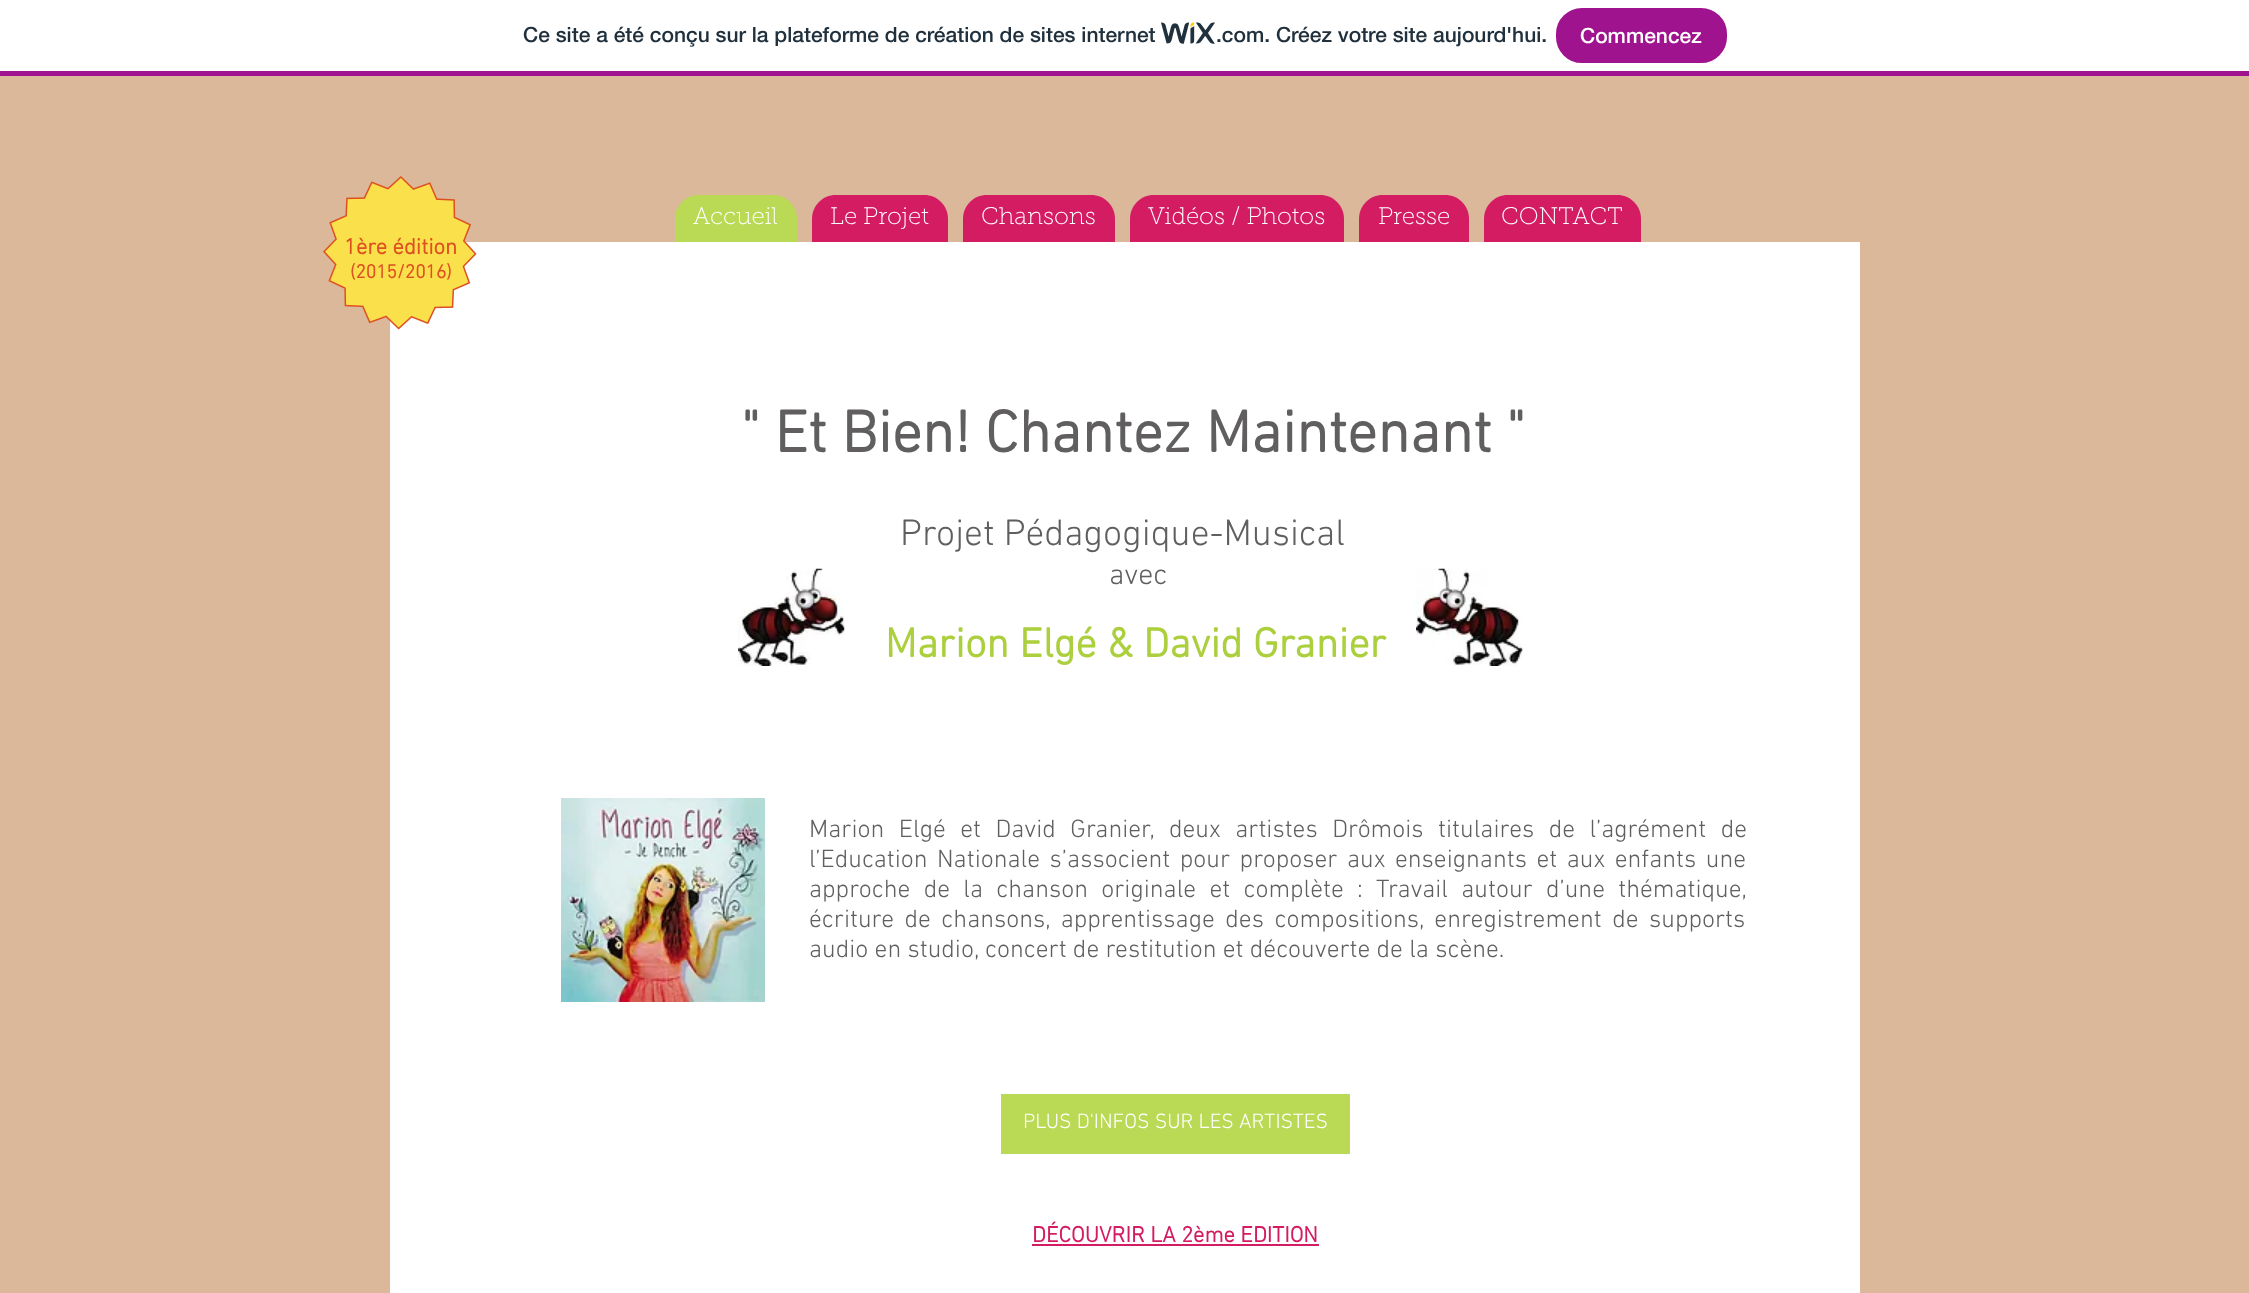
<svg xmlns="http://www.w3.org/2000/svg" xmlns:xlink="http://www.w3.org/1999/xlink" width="2249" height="1293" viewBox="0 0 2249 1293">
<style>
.cls-1{font:500 21px 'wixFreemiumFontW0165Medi';fill:#20303c}
.cls-2{font:500 21px 'wixFreemiumFontW0165Medi';fill:#ffffff}
.cls-3{font:100 24px 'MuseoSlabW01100';fill:#ffffff}
.cls-4{font:bold 22.5px 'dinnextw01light';fill:#de5021}
.cls-5{font:bold 19.5px 'dinnextw01light';fill:#de5021}
.cls-6{font:bold 60px 'dinnextw01light';fill:#605e5e}
.cls-7{font:300 37.5px 'dinnextw01light';fill:#605e5e}
.cls-8{font:300 30px 'dinnextw01light';fill:#605e5e}
.cls-9{font:bold 42px 'dinnextw01light';fill:#accf3e}
.cls-10{font:300 25.5px 'dinnextw01light';fill:#605e5e}
.cls-11{font:300 21px 'dinnextw01light';fill:#ffffff}
.cls-12{font:bold 22.5px 'dinnextw01light';fill:#d41c62}
</style>
<rect width="100%" height="100%" fill="#ffffff"/>
<rect fill="#a0138e" x="0" y="71" width="2249" height="5"/>
<image xlink:href="image0.png" x="1161" y="22" width="54" height="22"/>
<rect fill="#a0138e" stroke="#a0138e" stroke-width="2" x="1557" y="9" width="169" height="53" rx="25"/>
<rect fill="#dbb89a" x="0" y="76" width="2249" height="1217"/>
<path fill="#bada55" d="M699 195H773C786.5 195 797 205.5 797 219V242H675V219C675 205.5 685.5 195 699 195Z"/>
<path fill="#d41c62" d="M836 195H924C937.5 195 948 205.5 948 219V242H812V219C812 205.5 822.5 195 836 195Z"/>
<path fill="#d41c62" d="M987 195H1091C1104.5 195 1115 205.5 1115 219V242H963V219C963 205.5 973.5 195 987 195Z"/>
<path fill="#d41c62" d="M1154 195H1320C1333.5 195 1344 205.5 1344 219V242H1130V219C1130 205.5 1140.5 195 1154 195Z"/>
<path fill="#d41c62" d="M1383 195H1445C1458.5 195 1469 205.5 1469 219V242H1359V219C1359 205.5 1369.5 195 1383 195Z"/>
<path fill="#d41c62" d="M1508 195H1617C1630.5 195 1641 205.5 1641 219V242H1484V219C1484 205.5 1494.5 195 1508 195Z"/>
<rect fill="#ffffff" x="390" y="242" width="1470" height="1051"/>
<image xlink:href="image1.png" x="323" y="176" width="154" height="154"/>
<image xlink:href="image2.png" x="738" y="568" width="107" height="98"/>
<image xlink:href="image3.png" x="1416" y="568" width="107" height="98"/>
<image xlink:href="image4.png" x="561" y="798" width="204" height="204"/>
<rect fill="#bada55" x="1001" y="1094" width="349" height="60"/>
<rect fill="#d41c62" x="1032" y="1244" width="287" height="2"/>
<text class="cls-1" x="523" y="42">Ce site a été conçu sur la plateforme de création de sites internet</text>
<text class="cls-1" x="1216" y="42">.com. Créez votre site aujourd'hui.</text>
<text class="cls-2" x="1580" y="43">Commencez</text>
<text class="cls-3" x="693" y="224">Accueil</text>
<text class="cls-3" x="830" y="224">Le Projet</text>
<text class="cls-3" x="981" y="224">Chansons</text>
<text class="cls-3" x="1148" y="224">Vidéos / Photos</text>
<text class="cls-3" x="1378" y="224">Presse</text>
<text class="cls-3" x="1501" y="224">CONTACT</text>
<text class="cls-4" x="344" y="254">1ère édition</text>
<text class="cls-5" x="350" y="278">(2015/2016)</text>
<text class="cls-6" x="741" y="452">" Et Bien! Chantez Maintenant "</text>
<text class="cls-7" x="900" y="545">Projet Pédagogique-Musical</text>
<text class="cls-8" x="1109" y="584">avec</text>
<text class="cls-9" x="885" y="657">Marion Elgé &amp; David Granier</text>
<text class="cls-10"><tspan x="809" y="837" word-spacing="8.25">Marion Elgé et David Granier, deux artistes Drômois titulaires de l’agrément de</tspan><tspan x="809" y="867" word-spacing="3.25">l’Education Nationale s’associent pour proposer aux enseignants et aux enfants une</tspan><tspan x="809" y="897" word-spacing="7">approche de la chanson originale et complète : Travail autour d’une thématique,</tspan><tspan x="809" y="927" word-spacing="4.25">écriture de chansons, apprentissage des compositions, enregistrement de supports</tspan><tspan x="809" y="957">audio en studio, concert de restitution et découverte de la scène.</tspan></text>
<text class="cls-11" x="1023" y="1128">PLUS D'INFOS SUR LES ARTISTES</text>
<text class="cls-12" x="1032" y="1242">DÉCOUVRIR LA 2ème EDITION</text>
</svg>
